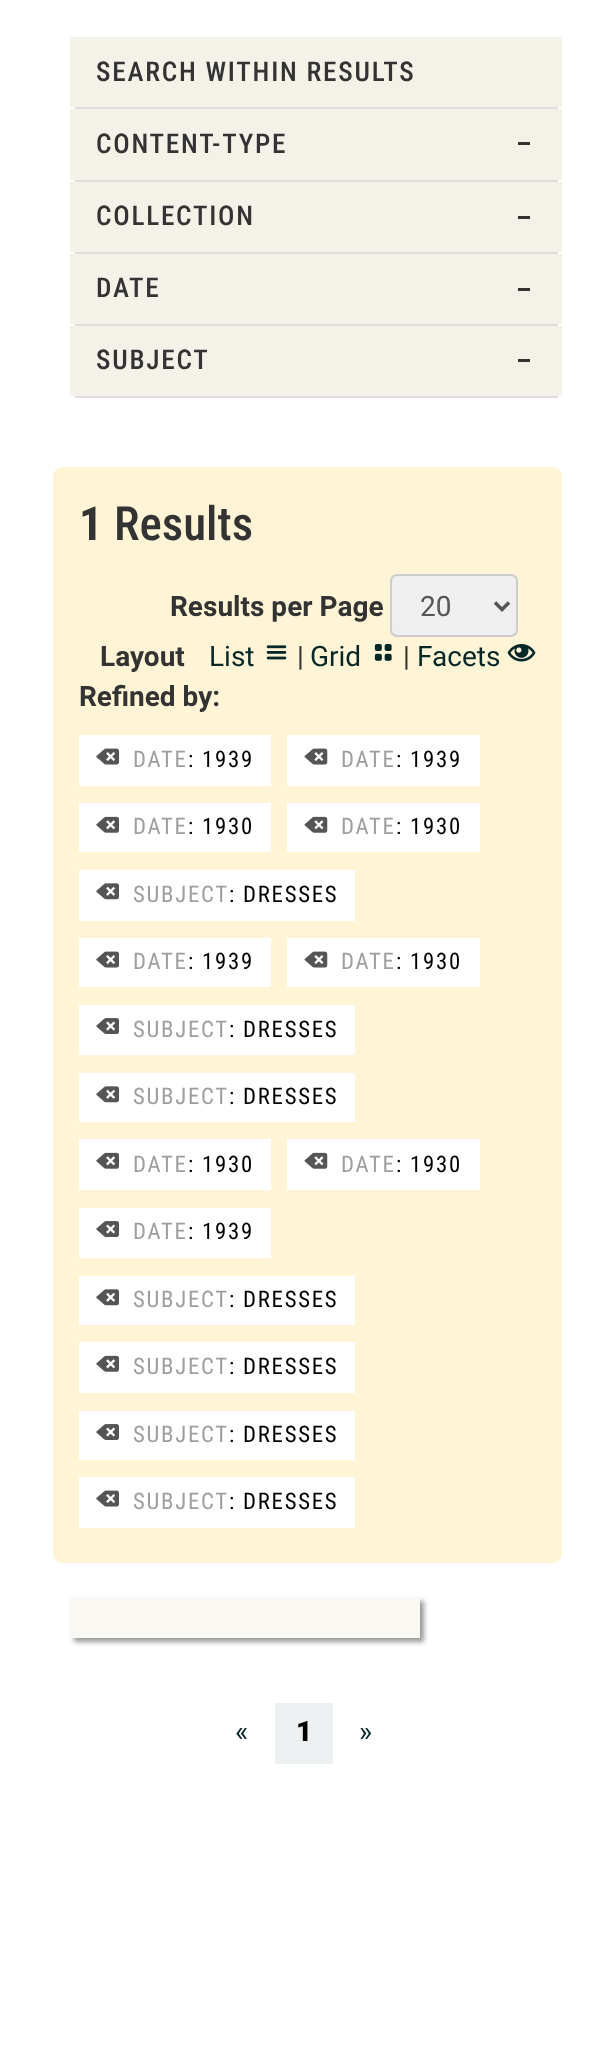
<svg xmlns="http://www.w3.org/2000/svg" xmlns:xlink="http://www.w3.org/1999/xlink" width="613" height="2072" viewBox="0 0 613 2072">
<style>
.cls-1{font:500 27.25px Roboto Condensed;letter-spacing:1.75px;fill:#333333}
.cls-2{font:bold 47px Roboto Condensed;fill:#333333}
.cls-3{font:500 47px Roboto Condensed;fill:#333333}
.cls-4{font:bold 28px Roboto;fill:#333333}
.cls-5{font:28px Roboto;fill:#555555}
.cls-6{font:28px Roboto;fill:#062728}
.cls-7{font:28px Roboto;fill:#333333}
.cls-8{font:22.75px Roboto Condensed;letter-spacing:1.75px;fill:#9e9e9e}
.cls-9{font:22.75px Roboto Condensed;letter-spacing:1.75px;fill:#000000}
.cls-10{font:900 28px Roboto;fill:#000000}
</style>
<rect width="100%" height="100%" fill="#ffffff"/>
<rect fill="#f9f8f3" x="70" y="37" width="492" height="72" rx="9"/>
<rect fill="#dddddd" x="75" y="107" width="483" height="2"/>
<rect fill="#f3f1e8" x="70" y="37" width="492" height="70"/>
<rect fill="#f9f8f3" x="70" y="109" width="492" height="73" rx="9"/>
<rect fill="#dddddd" x="75" y="180" width="483" height="2"/>
<rect fill="#f3f1e8" x="70" y="109" width="492" height="71"/>
<rect fill="#333333" x="518" y="142" width="12" height="3"/>
<rect fill="#f9f8f3" x="70" y="182" width="492" height="72" rx="9"/>
<rect fill="#dddddd" x="75" y="252" width="483" height="2"/>
<rect fill="#f3f1e8" x="70" y="182" width="492" height="70"/>
<rect fill="#333333" x="518" y="216" width="12" height="3"/>
<rect fill="#f9f8f3" x="70" y="254" width="492" height="72" rx="9"/>
<rect fill="#dddddd" x="75" y="324" width="483" height="2"/>
<rect fill="#f3f1e8" x="70" y="254" width="492" height="70"/>
<rect fill="#333333" x="518" y="288" width="12" height="3"/>
<rect fill="#dddddd" x="75" y="396" width="483" height="2"/>
<rect fill="#f3f1e8" x="70" y="326" width="492" height="70"/>
<rect fill="#333333" x="518" y="359" width="12" height="3"/>
<rect fill="#fff5d6" x="53" y="467" width="509" height="1096" rx="9"/>
<rect fill="#efefef" stroke="#cccccc" stroke-width="2" x="391" y="575" width="126" height="61" rx="6"/>
<path fill="none" stroke="#555555" stroke-width="3.5" d="M495 602.5L502 609.5L509 602.5"/>
<image xlink:href="image0.png" x="266" y="645" width="21" height="15"/>
<image xlink:href="image1.png" x="374" y="644" width="18" height="17"/>
<image xlink:href="image2.png" x="507" y="644" width="29" height="18"/>
<rect fill="#ffffff" x="79" y="735" width="192" height="51"/>
<image xlink:href="image3.png" x="96" y="748" width="23" height="17"/>
<rect fill="#ffffff" x="287" y="735" width="193" height="51"/>
<image xlink:href="image4.png" x="304" y="748" width="24" height="17"/>
<rect fill="#ffffff" x="79" y="803" width="192" height="49"/>
<image xlink:href="image5.png" x="96" y="816" width="23" height="17"/>
<rect fill="#ffffff" x="287" y="803" width="193" height="49"/>
<image xlink:href="image6.png" x="304" y="816" width="24" height="17"/>
<rect fill="#ffffff" x="79" y="870" width="276" height="51"/>
<image xlink:href="image7.png" x="96" y="883" width="23" height="17"/>
<rect fill="#ffffff" x="79" y="938" width="192" height="49"/>
<image xlink:href="image3.png" x="96" y="951" width="23" height="17"/>
<rect fill="#ffffff" x="287" y="938" width="193" height="49"/>
<image xlink:href="image4.png" x="304" y="951" width="24" height="17"/>
<rect fill="#ffffff" x="79" y="1005" width="276" height="50"/>
<image xlink:href="image8.png" x="96" y="1018" width="23" height="16"/>
<rect fill="#ffffff" x="79" y="1073" width="276" height="49"/>
<image xlink:href="image7.png" x="96" y="1086" width="23" height="17"/>
<rect fill="#ffffff" x="79" y="1139" width="192" height="51"/>
<image xlink:href="image5.png" x="96" y="1152" width="23" height="17"/>
<rect fill="#ffffff" x="287" y="1139" width="193" height="51"/>
<image xlink:href="image6.png" x="304" y="1152" width="24" height="17"/>
<rect fill="#ffffff" x="79" y="1208" width="192" height="50"/>
<image xlink:href="image8.png" x="96" y="1221" width="23" height="16"/>
<rect fill="#ffffff" x="79" y="1276" width="276" height="49"/>
<image xlink:href="image7.png" x="96" y="1289" width="23" height="17"/>
<rect fill="#ffffff" x="79" y="1342" width="276" height="51"/>
<image xlink:href="image5.png" x="96" y="1355" width="23" height="17"/>
<rect fill="#ffffff" x="79" y="1411" width="276" height="49"/>
<image xlink:href="image8.png" x="96" y="1424" width="23" height="16"/>
<rect fill="#ffffff" x="79" y="1477" width="276" height="51"/>
<image xlink:href="image3.png" x="96" y="1490" width="23" height="17"/>
<rect fill="#000000" fill-opacity="0.4" filter="blur(2.5px)" x="74" y="1601" width="350" height="41"/>
<rect fill="#f9f8f3" x="70" y="1598" width="350" height="40"/>
<rect fill="#eef1f1" x="275" y="1703" width="58" height="61"/>
<text class="cls-1" x="96" y="81">SEARCH WITHIN RESULTS</text>
<text class="cls-1" x="96" y="153">CONTENT-TYPE</text>
<text class="cls-1" x="96" y="225">COLLECTION</text>
<text class="cls-1" x="96" y="297">DATE</text>
<text class="cls-1" x="96" y="369">SUBJECT</text>
<text class="cls-2" x="79" y="540">1</text>
<text class="cls-3" x="114" y="540">Results</text>
<text class="cls-4" x="170" y="616">Results per Page</text>
<text class="cls-5" x="420" y="616">20</text>
<text class="cls-4" x="100" y="666">Layout</text>
<text class="cls-6" x="209" y="666">List</text>
<text class="cls-7" x="297" y="666">|</text>
<text class="cls-6" x="310" y="666">Grid</text>
<text class="cls-7" x="403" y="666">|</text>
<text class="cls-6" x="417" y="666">Facets</text>
<text class="cls-4" x="79" y="706">Refined by:</text>
<text class="cls-8" x="133" y="767">DATE</text>
<text class="cls-9" x="188" y="767">: 1939</text>
<text class="cls-8" x="341" y="767">DATE</text>
<text class="cls-9" x="396" y="767">: 1939</text>
<text class="cls-8" x="133" y="834">DATE</text>
<text class="cls-9" x="188" y="834">: 1930</text>
<text class="cls-8" x="341" y="834">DATE</text>
<text class="cls-9" x="396" y="834">: 1930</text>
<text class="cls-8" x="133" y="902">SUBJECT</text>
<text class="cls-9" x="229" y="902">: DRESSES</text>
<text class="cls-8" x="133" y="969">DATE</text>
<text class="cls-9" x="188" y="969">: 1939</text>
<text class="cls-8" x="341" y="969">DATE</text>
<text class="cls-9" x="396" y="969">: 1930</text>
<text class="cls-8" x="133" y="1037">SUBJECT</text>
<text class="cls-9" x="229" y="1037">: DRESSES</text>
<text class="cls-8" x="133" y="1104">SUBJECT</text>
<text class="cls-9" x="229" y="1104">: DRESSES</text>
<text class="cls-8" x="133" y="1172">DATE</text>
<text class="cls-9" x="188" y="1172">: 1930</text>
<text class="cls-8" x="341" y="1172">DATE</text>
<text class="cls-9" x="396" y="1172">: 1930</text>
<text class="cls-8" x="133" y="1239">DATE</text>
<text class="cls-9" x="188" y="1239">: 1939</text>
<text class="cls-8" x="133" y="1307">SUBJECT</text>
<text class="cls-9" x="229" y="1307">: DRESSES</text>
<text class="cls-8" x="133" y="1374">SUBJECT</text>
<text class="cls-9" x="229" y="1374">: DRESSES</text>
<text class="cls-8" x="133" y="1442">SUBJECT</text>
<text class="cls-9" x="229" y="1442">: DRESSES</text>
<text class="cls-8" x="133" y="1509">SUBJECT</text>
<text class="cls-9" x="229" y="1509">: DRESSES</text>
<text class="cls-6" x="235" y="1741">«</text>
<text class="cls-10" x="296" y="1741">1</text>
<text class="cls-6" x="359" y="1741">»</text>
</svg>
